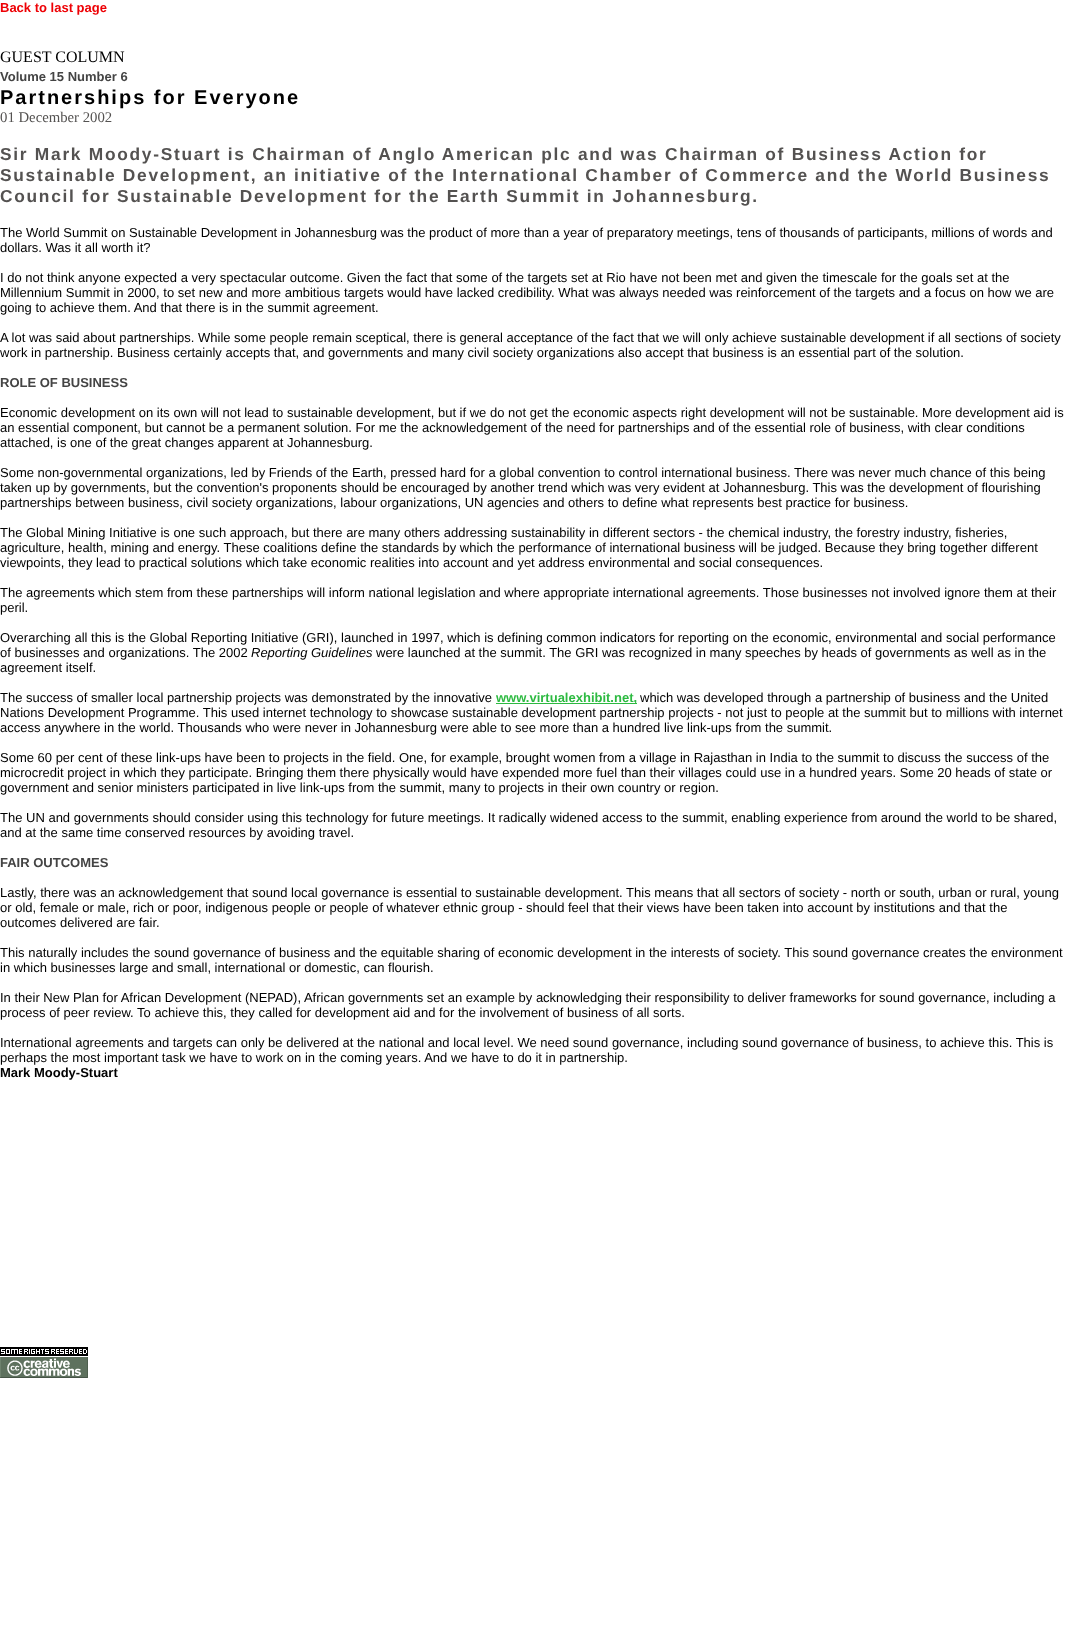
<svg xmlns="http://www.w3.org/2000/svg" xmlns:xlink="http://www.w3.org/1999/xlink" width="1066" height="1626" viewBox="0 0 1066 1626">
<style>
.cls-1{font:bold 13px Liberation Sans;fill:#ee0005}
.cls-2{font:16px Liberation Serif;fill:#000000}
.cls-3{font:bold 13px Liberation Sans;fill:#444444}
.cls-4{font:bold 20px Liberation Sans;letter-spacing:2px;fill:#000000}
.cls-5{font:14.75px Liberation Serif;fill:#545251}
.cls-6{font:bold 17.33px Liberation Sans;letter-spacing:1.73px;fill:#545251}
.cls-7{font:13px Liberation Sans;fill:#000000}
.cls-8{font:italic 13px Liberation Sans;fill:#000000}
.cls-9{font:bold 13px Liberation Sans;fill:#2dba41}
.cls-10{font:bold 13px Liberation Sans;fill:#000000}
</style>
<rect width="100%" height="100%" fill="#ffffff"/>
<rect fill="#2dba41" x="496" y="703" width="141" height="1"/>
<image xlink:href="image0.png" x="0" y="1347" width="88" height="31"/>
<text class="cls-1" x="0" y="12">Back to last page</text>
<text class="cls-2" x="0" y="62">GUEST COLUMN</text>
<text class="cls-3" x="0" y="81">Volume 15 Number 6</text>
<text class="cls-4" x="0" y="104">Partnerships for Everyone</text>
<text class="cls-5" x="0" y="122">01 December 2002</text>
<text class="cls-6"><tspan x="0" y="160">Sir Mark Moody-Stuart is Chairman of Anglo American plc and was Chairman of Business Action for</tspan><tspan x="0" y="181">Sustainable Development, an initiative of the International Chamber of Commerce and the World Business</tspan><tspan x="0" y="202">Council for Sustainable Development for the Earth Summit in Johannesburg.</tspan></text>
<text class="cls-7"><tspan x="0" y="237">The World Summit on Sustainable Development in Johannesburg was the product of more than a year of preparatory meetings, tens of thousands of participants, millions of words and</tspan><tspan x="0" y="252">dollars. Was it all worth it?</tspan></text>
<text class="cls-7"><tspan x="0" y="282">I do not think anyone expected a very spectacular outcome. Given the fact that some of the targets set at Rio have not been met and given the timescale for the goals set at the</tspan><tspan x="0" y="297">Millennium Summit in 2000, to set new and more ambitious targets would have lacked credibility. What was always needed was reinforcement of the targets and a focus on how we are</tspan><tspan x="0" y="312">going to achieve them. And that there is in the summit agreement.</tspan></text>
<text class="cls-7"><tspan x="0" y="342">A lot was said about partnerships. While some people remain sceptical, there is general acceptance of the fact that we will only achieve sustainable development if all sections of society</tspan><tspan x="0" y="357">work in partnership. Business certainly accepts that, and governments and many civil society organizations also accept that business is an essential part of the solution.</tspan></text>
<text class="cls-3" x="0" y="387">ROLE OF BUSINESS</text>
<text class="cls-7"><tspan x="0" y="417">Economic development on its own will not lead to sustainable development, but if we do not get the economic aspects right development will not be sustainable. More development aid is</tspan><tspan x="0" y="432">an essential component, but cannot be a permanent solution. For me the acknowledgement of the need for partnerships and of the essential role of business, with clear conditions</tspan><tspan x="0" y="447">attached, is one of the great changes apparent at Johannesburg.</tspan></text>
<text class="cls-7"><tspan x="0" y="477">Some non-governmental organizations, led by Friends of the Earth, pressed hard for a global convention to control international business. There was never much chance of this being</tspan><tspan x="0" y="492">taken up by governments, but the convention's proponents should be encouraged by another trend which was very evident at Johannesburg. This was the development of flourishing</tspan><tspan x="0" y="507">partnerships between business, civil society organizations, labour organizations, UN agencies and others to define what represents best practice for business.</tspan></text>
<text class="cls-7"><tspan x="0" y="537">The Global Mining Initiative is one such approach, but there are many others addressing sustainability in different sectors - the chemical industry, the forestry industry, fisheries,</tspan><tspan x="0" y="552">agriculture, health, mining and energy. These coalitions define the standards by which the performance of international business will be judged. Because they bring together different</tspan><tspan x="0" y="567">viewpoints, they lead to practical solutions which take economic realities into account and yet address environmental and social consequences.</tspan></text>
<text class="cls-7"><tspan x="0" y="597">The agreements which stem from these partnerships will inform national legislation and where appropriate international agreements. Those businesses not involved ignore them at their</tspan><tspan x="0" y="612">peril.</tspan></text>
<text class="cls-7"><tspan x="0" y="642">Overarching all this is the Global Reporting Initiative (GRI), launched in 1997, which is defining common indicators for reporting on the economic, environmental and social performance</tspan><tspan x="0" y="657">of businesses and organizations. The 2002</tspan></text>
<text class="cls-8" x="251" y="657">Reporting Guidelines</text>
<text class="cls-7" x="376" y="657">were launched at the summit. The GRI was recognized in many speeches by heads of governments as well as in the</text>
<text class="cls-7" x="0" y="672">agreement itself.</text>
<text class="cls-7" x="0" y="702">The success of smaller local partnership projects was demonstrated by the innovative</text>
<text class="cls-9" x="496" y="702">www.virtualexhibit.net,</text>
<text class="cls-7" x="640" y="702">which was developed through a partnership of business and the United</text>
<text class="cls-7"><tspan x="0" y="717">Nations Development Programme. This used internet technology to showcase sustainable development partnership projects - not just to people at the summit but to millions with internet</tspan><tspan x="0" y="732">access anywhere in the world. Thousands who were never in Johannesburg were able to see more than a hundred live link-ups from the summit.</tspan></text>
<text class="cls-7"><tspan x="0" y="762">Some 60 per cent of these link-ups have been to projects in the field. One, for example, brought women from a village in Rajasthan in India to the summit to discuss the success of the</tspan><tspan x="0" y="777">microcredit project in which they participate. Bringing them there physically would have expended more fuel than their villages could use in a hundred years. Some 20 heads of state or</tspan><tspan x="0" y="792">government and senior ministers participated in live link-ups from the summit, many to projects in their own country or region.</tspan></text>
<text class="cls-7"><tspan x="0" y="822">The UN and governments should consider using this technology for future meetings. It radically widened access to the summit, enabling experience from around the world to be shared,</tspan><tspan x="0" y="837">and at the same time conserved resources by avoiding travel.</tspan></text>
<text class="cls-3" x="0" y="867">FAIR OUTCOMES</text>
<text class="cls-7"><tspan x="0" y="897">Lastly, there was an acknowledgement that sound local governance is essential to sustainable development. This means that all sectors of society - north or south, urban or rural, young</tspan><tspan x="0" y="912">or old, female or male, rich or poor, indigenous people or people of whatever ethnic group - should feel that their views have been taken into account by institutions and that the</tspan><tspan x="0" y="927">outcomes delivered are fair.</tspan></text>
<text class="cls-7"><tspan x="0" y="957">This naturally includes the sound governance of business and the equitable sharing of economic development in the interests of society. This sound governance creates the environment</tspan><tspan x="0" y="972">in which businesses large and small, international or domestic, can flourish.</tspan></text>
<text class="cls-7"><tspan x="0" y="1002">In their New Plan for African Development (NEPAD), African governments set an example by acknowledging their responsibility to deliver frameworks for sound governance, including a</tspan><tspan x="0" y="1017">process of peer review. To achieve this, they called for development aid and for the involvement of business of all sorts.</tspan></text>
<text class="cls-7"><tspan x="0" y="1047">International agreements and targets can only be delivered at the national and local level. We need sound governance, including sound governance of business, to achieve this. This is</tspan><tspan x="0" y="1062">perhaps the most important task we have to work on in the coming years. And we have to do it in partnership.</tspan></text>
<text class="cls-10" x="0" y="1077">Mark Moody-Stuart</text>
</svg>
